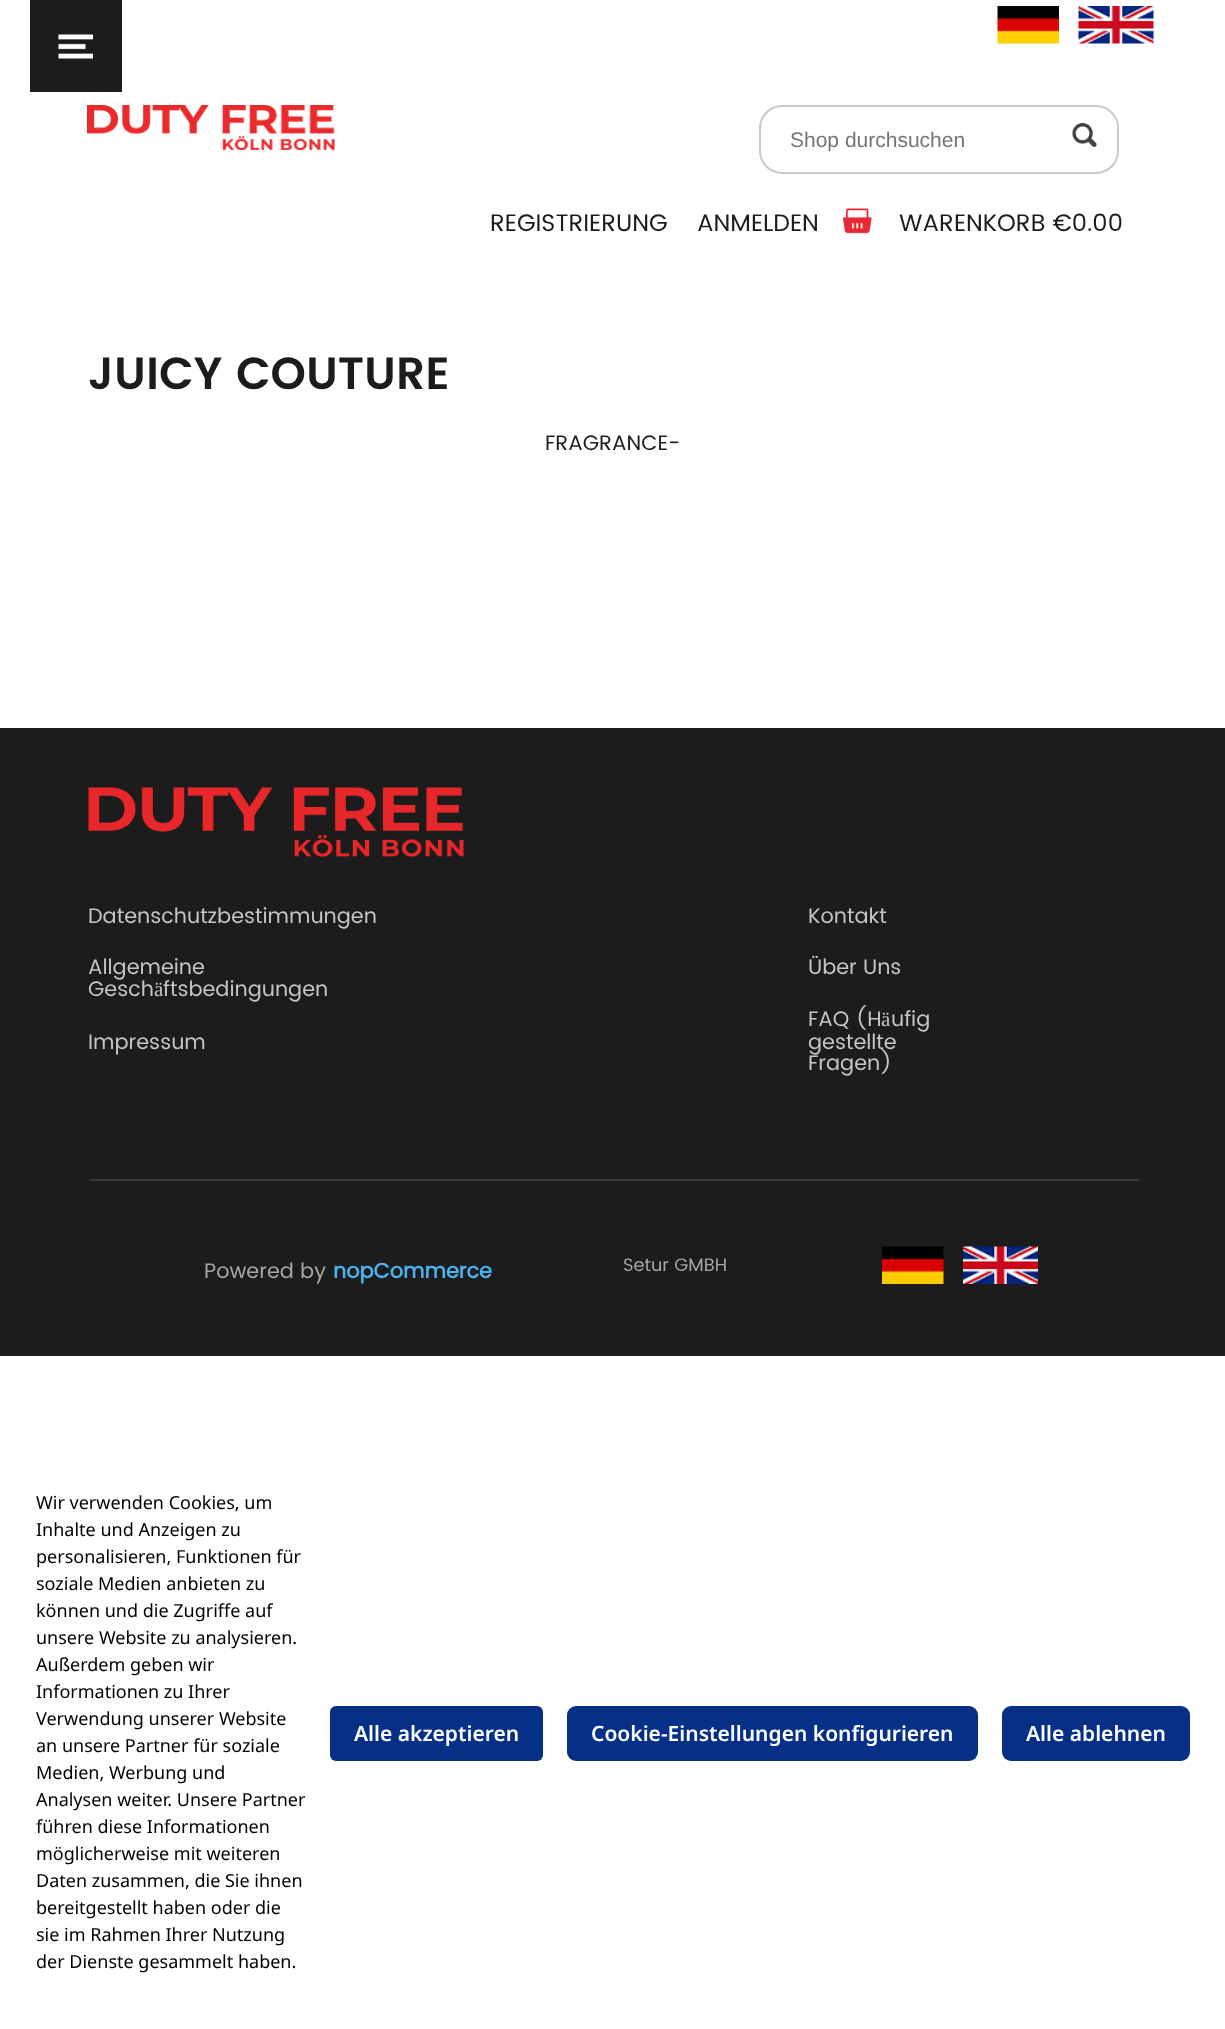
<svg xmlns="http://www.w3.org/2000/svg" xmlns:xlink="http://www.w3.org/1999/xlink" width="1225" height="2029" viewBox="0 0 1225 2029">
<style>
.cls-1{font:21px Liberation Sans;fill:#757575}
.cls-2{font:24px Poppins;fill:#1c1c1c}
.cls-3{font:600 45px Poppins;fill:#1c1c1c}
.cls-4{font:21px Poppins;fill:#1c1c1c}
.cls-5{font:21px Poppins;fill:#c5c5c5}
.cls-6{font:21px Liberation Serif;fill:#c5c5c5}
.cls-7{font:21px Poppins;fill:#a6a6a6}
.cls-8{font:bold 21px Poppins;fill:#4ab2f1}
.cls-9{font:18px Poppins;fill:#a6a6a6}
.cls-10{font:18px Noto Sans;fill:#000000}
.cls-11{font:600 21px Noto Sans;fill:#ffffff}
</style>
<rect width="100%" height="100%" fill="#ffffff"/>
<rect fill="#1c1c1c" x="30" y="0" width="92" height="92"/>
<image xlink:href="image0.png" x="58" y="34" width="35" height="25"/>
<image xlink:href="image1.png" x="997" y="6" width="62" height="38"/>
<image xlink:href="image2.png" x="1078" y="6" width="76" height="38"/>
<image xlink:href="image3.png" x="87" y="105" width="248" height="45"/>
<rect fill="none" stroke="#cbc9c9" stroke-width="2" x="760" y="106" width="358" height="67" rx="22"/>
<image xlink:href="image4.png" x="1072" y="123" width="25" height="24"/>
<image xlink:href="image5.png" x="843" y="208" width="29" height="26"/>
<rect fill="#1c1c1c" x="0" y="728" width="1225" height="628"/>
<image xlink:href="image6.png" x="88" y="787" width="376" height="70"/>
<rect fill="#383838" x="89" y="1179" width="1050" height="2"/>
<image xlink:href="image7.png" x="882" y="1246" width="62" height="38"/>
<image xlink:href="image8.png" x="963" y="1246" width="75" height="38"/>
<rect fill="#062f87" x="330" y="1706" width="213" height="55" rx="6"/>
<rect fill="#062f87" x="567" y="1706" width="411" height="55" rx="9"/>
<rect fill="#062f87" x="1002" y="1706" width="188" height="55" rx="9"/>
<text class="cls-1" x="790" y="147">Shop durchsuchen</text>
<text class="cls-2" x="490" y="231">REGISTRIERUNG</text>
<text class="cls-2" x="697" y="231">ANMELDEN</text>
<text class="cls-2" x="899" y="231">WARENKORB €0.00</text>
<text class="cls-3" x="88" y="389">JUICY COUTURE</text>
<text class="cls-4" x="545" y="450">FRAGRANCE-</text>
<text class="cls-5" x="88" y="923">Datenschutzbestimmungen</text>
<text class="cls-5"><tspan x="88" y="974">Allgemeine</tspan><tspan x="88" y="996">Gesch</tspan></text>
<text class="cls-6" x="154" y="996">ä</text>
<text class="cls-5" x="163" y="996">ftsbedingungen</text>
<text class="cls-5" x="88" y="1049">Impressum</text>
<text class="cls-5" x="808" y="923">Kontakt</text>
<text class="cls-5" x="808" y="974">Über Uns</text>
<text class="cls-5" x="808" y="1026">FAQ (H</text>
<text class="cls-6" x="881" y="1026">ä</text>
<text class="cls-5" x="891" y="1026">ufig</text>
<text class="cls-5"><tspan x="808" y="1049">gestellte</tspan><tspan x="808" y="1070">Fragen)</tspan></text>
<text class="cls-7" x="204" y="1278">Powered by</text>
<text class="cls-8" x="333" y="1278">nopCommerce</text>
<text class="cls-9" x="623" y="1271">Setur GMBH</text>
<text class="cls-10"><tspan x="36" y="1509">Wir verwenden Cookies, um</tspan><tspan x="36" y="1536">Inhalte und Anzeigen zu</tspan><tspan x="36" y="1563">personalisieren, Funktionen für</tspan><tspan x="36" y="1590">soziale Medien anbieten zu</tspan><tspan x="36" y="1617">können und die Zugriffe auf</tspan><tspan x="36" y="1644">unsere Website zu analysieren.</tspan><tspan x="36" y="1671">Außerdem geben wir</tspan><tspan x="36" y="1698">Informationen zu Ihrer</tspan><tspan x="36" y="1725">Verwendung unserer Website</tspan><tspan x="36" y="1752">an unsere Partner für soziale</tspan><tspan x="36" y="1779">Medien, Werbung und</tspan><tspan x="36" y="1806">Analysen weiter. Unsere Partner</tspan><tspan x="36" y="1833">führen diese Informationen</tspan><tspan x="36" y="1860">möglicherweise mit weiteren</tspan><tspan x="36" y="1887">Daten zusammen, die Sie ihnen</tspan><tspan x="36" y="1914">bereitgestellt haben oder die</tspan><tspan x="36" y="1941">sie im Rahmen Ihrer Nutzung</tspan><tspan x="36" y="1968">der Dienste gesammelt haben.</tspan></text>
<text class="cls-11" x="354" y="1741">Alle akzeptieren</text>
<text class="cls-11" x="591" y="1741">Cookie-Einstellungen konfigurieren</text>
<text class="cls-11" x="1026" y="1741">Alle ablehnen</text>
</svg>
